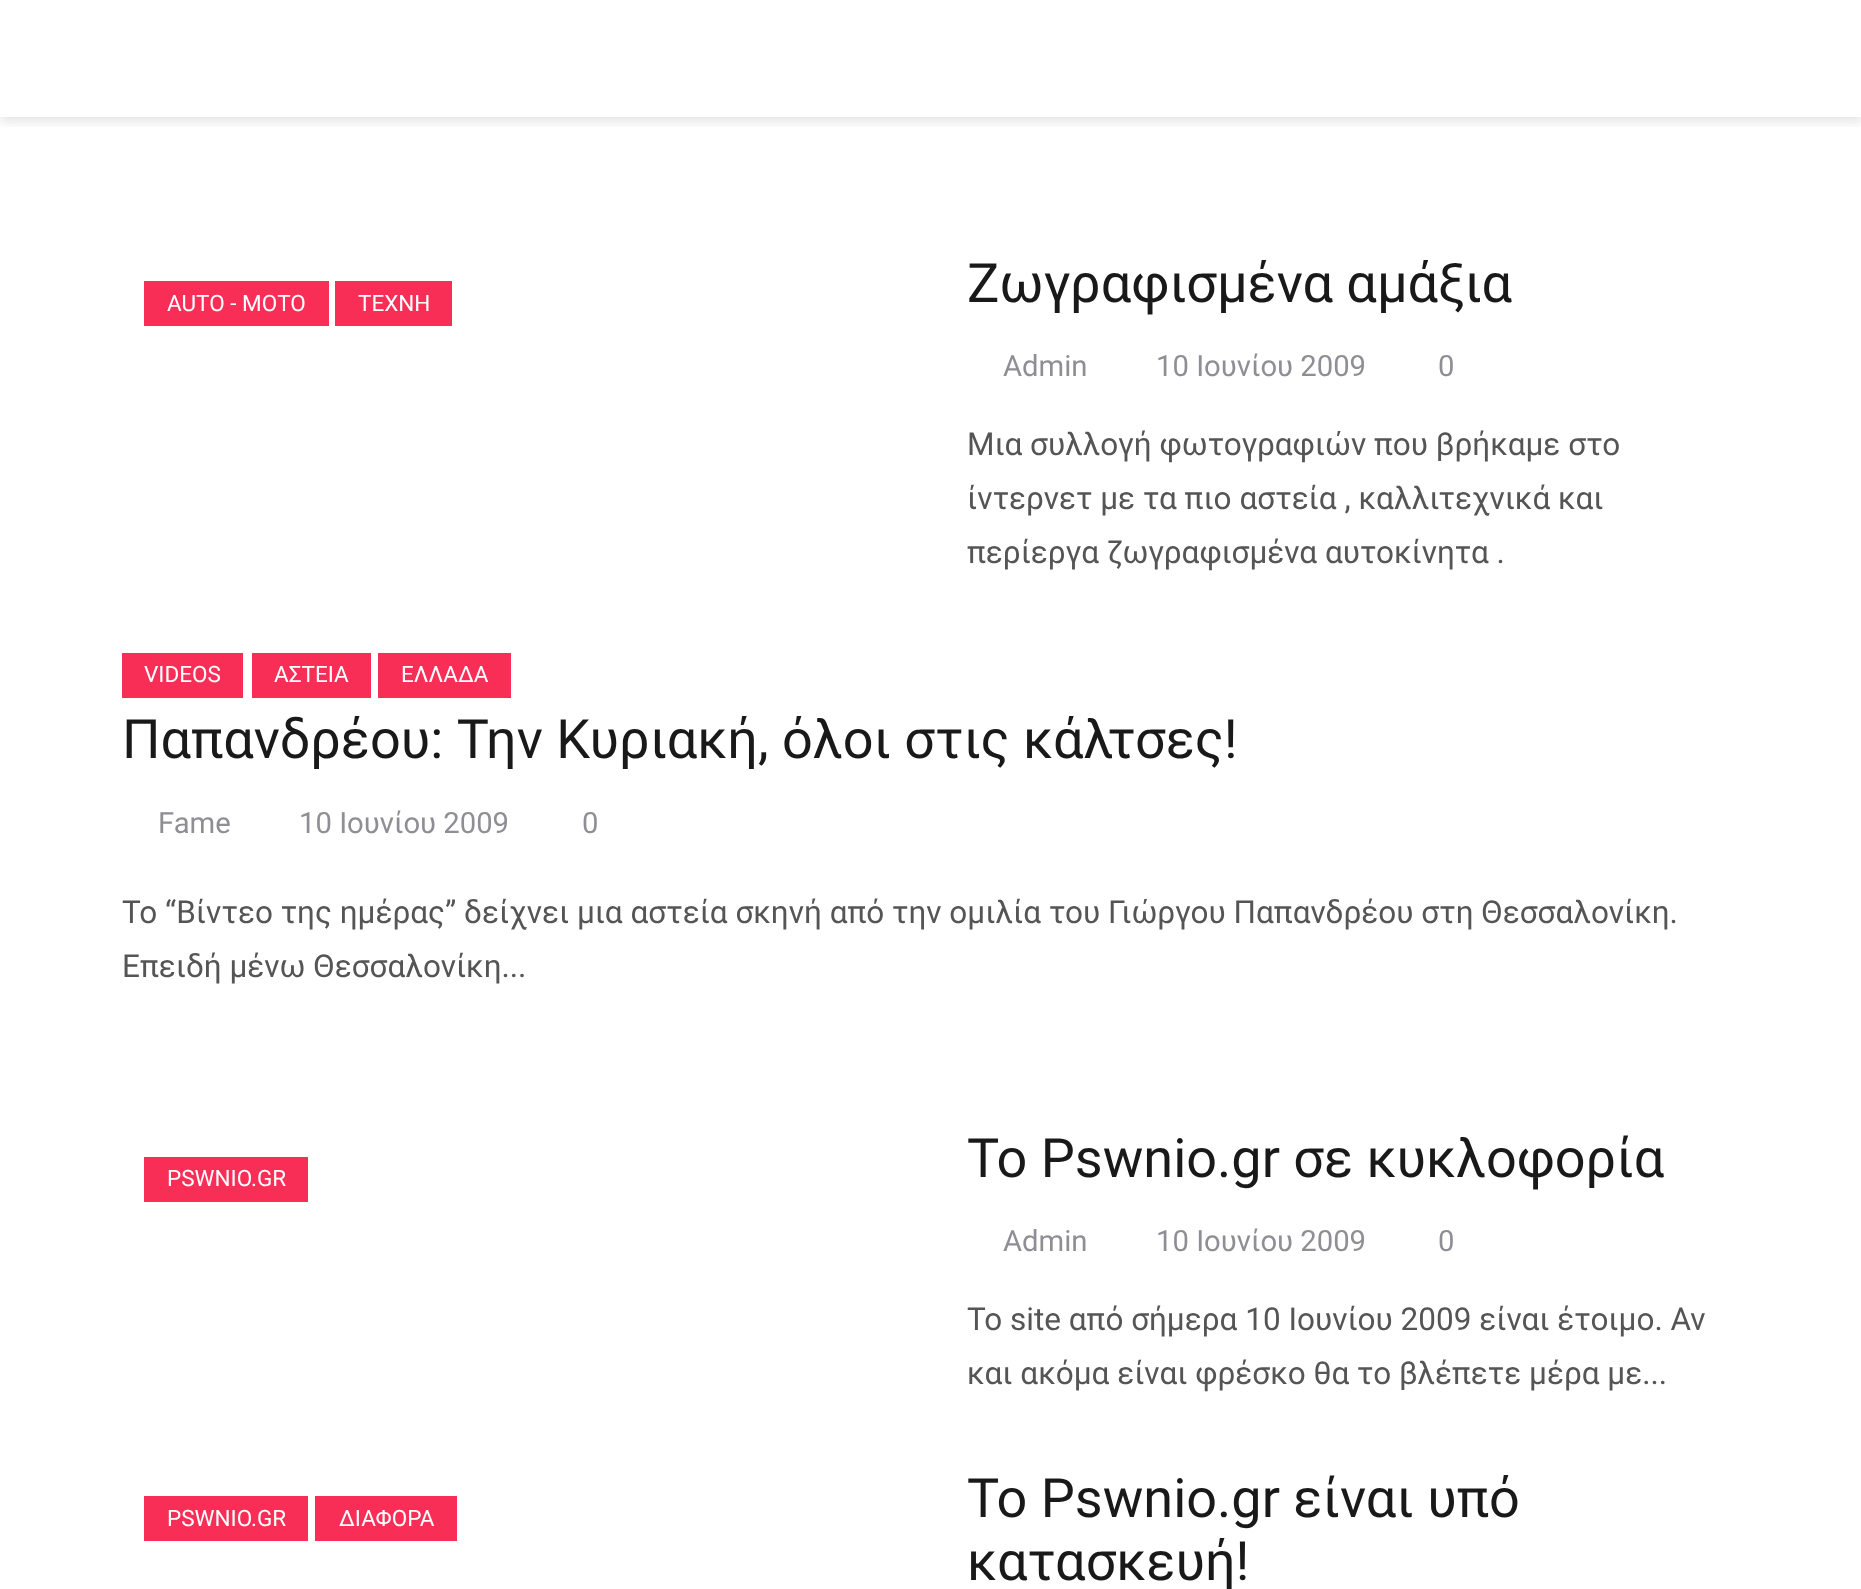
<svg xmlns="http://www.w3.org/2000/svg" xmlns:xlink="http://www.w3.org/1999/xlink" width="1861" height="1589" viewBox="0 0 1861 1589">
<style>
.cls-1{font:22.5px Roboto;fill:#ffffff}
.cls-2{font:54px Roboto;fill:#191919}
.cls-3{font:29.25px Roboto;fill:#8e8e95}
.cls-4{font:31.5px Roboto;fill:#555555}
</style>
<defs>
<clipPath id="clip1"><rect x="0" y="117" width="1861" height="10"/></clipPath>
</defs>
<rect width="100%" height="100%" fill="#ffffff"/>
<g clip-path="url(#clip1)">
<rect fill="#000000" fill-opacity="0.1" filter="blur(5.5px)" x="0" y="5" width="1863" height="117"/>
</g>
<rect fill="#f82e56" x="144" y="281" width="185" height="45"/>
<rect fill="#f82e56" x="335" y="281" width="117" height="45"/>
<rect fill="#f82e56" x="122" y="653" width="121" height="45"/>
<rect fill="#f82e56" x="252" y="653" width="119" height="45"/>
<rect fill="#f82e56" x="378" y="653" width="133" height="45"/>
<rect fill="#f82e56" x="144" y="1157" width="164" height="45"/>
<rect fill="#f82e56" x="144" y="1496" width="164" height="45"/>
<rect fill="#f82e56" x="315" y="1496" width="142" height="45"/>
<text class="cls-1" x="167" y="311">AUTO - ΜΟΤΟ</text>
<text class="cls-1" x="358" y="311">ΤΕΧΝΗ</text>
<text class="cls-2" x="967" y="302">Ζωγραφισμένα αμάξια</text>
<text class="cls-3" x="1003" y="376">Admin</text>
<text class="cls-3" x="1156" y="376">10 Ιουνίου 2009</text>
<text class="cls-3" x="1438" y="376">0</text>
<text class="cls-4"><tspan x="967" y="455">Μια συλλογή φωτογραφιών που βρήκαμε στο</tspan><tspan x="967" y="509">ίντερνετ με τα πιο αστεία , καλλιτεχνικά και</tspan><tspan x="967" y="563">περίεργα ζωγραφισμένα αυτοκίνητα .</tspan></text>
<text class="cls-1" x="144" y="682">VIDEOS</text>
<text class="cls-1" x="274" y="682">ΑΣΤΕΙΑ</text>
<text class="cls-1" x="401" y="682">ΕΛΛΑΔΑ</text>
<text class="cls-2" x="122" y="758">Παπανδρέου: Την Κυριακή, όλοι στις κάλτσες!</text>
<text class="cls-3" x="158" y="833">Fame</text>
<text class="cls-3" x="299" y="833">10 Ιουνίου 2009</text>
<text class="cls-3" x="582" y="833">0</text>
<text class="cls-4"><tspan x="122" y="923">Το “Βίντεο της ημέρας” δείχνει μια αστεία σκηνή από την ομιλία του Γιώργου Παπανδρέου στη Θεσσαλονίκη.</tspan><tspan x="122" y="977">Επειδή μένω Θεσσαλονίκη...</tspan></text>
<text class="cls-1" x="167" y="1186">PSWNIO.GR</text>
<text class="cls-2" x="967" y="1177">To Pswnio.gr σε κυκλοφορία</text>
<text class="cls-3" x="1003" y="1251">Admin</text>
<text class="cls-3" x="1156" y="1251">10 Ιουνίου 2009</text>
<text class="cls-3" x="1438" y="1251">0</text>
<text class="cls-4"><tspan x="967" y="1330">To site από σήμερα 10 Ιουνίου 2009 είναι έτοιμο. Αν</tspan><tspan x="967" y="1384">και ακόμα είναι φρέσκο θα το βλέπετε μέρα με...</tspan></text>
<text class="cls-1" x="167" y="1526">PSWNIO.GR</text>
<text class="cls-1" x="339" y="1526">ΔΙΑΦΟΡΑ</text>
<text class="cls-2"><tspan x="967" y="1517">To Pswnio.gr είναι υπό</tspan><tspan x="967" y="1580">κατασκευή!</tspan></text>
</svg>
